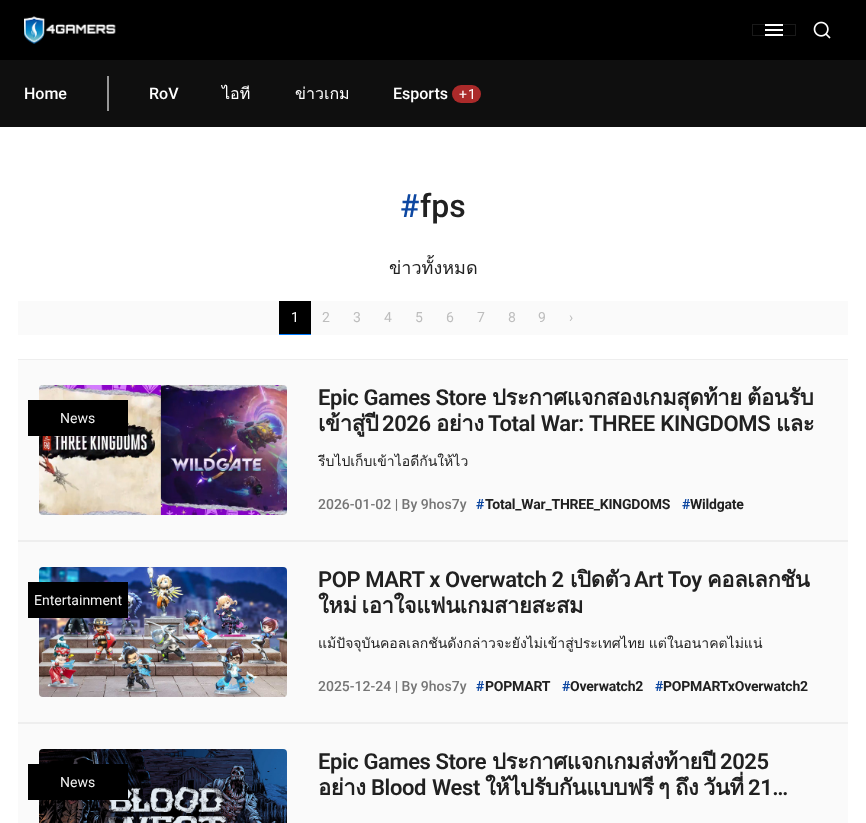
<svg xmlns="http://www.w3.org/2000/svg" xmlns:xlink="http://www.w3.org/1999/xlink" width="866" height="823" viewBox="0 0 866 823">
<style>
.cls-1{font:500 16px Roboto;fill:#ffffff}
.cls-2{font:16px Loma;fill:#ffffff}
.cls-3{font:14px Roboto;letter-spacing:1px;fill:#ffffff}
.cls-4{font:500 32px Roboto;fill:#0d47a1}
.cls-5{font:500 32px Roboto;fill:#212121}
.cls-6{font:18px Loma;fill:#212121}
.cls-7{font:14px Roboto;fill:#ffffff}
.cls-8{font:14px Roboto;fill:#bdbdbd}
.cls-9{font:14px Roboto;fill:#f1f1f1}
.cls-10{font:600 22px Roboto;letter-spacing:-0.4px;fill:#212121}
.cls-11{font:bold 22px Loma;letter-spacing:-0.4px;fill:#212121}
.cls-12{font:14px Loma;fill:#212121}
.cls-13{font:500 14px Roboto;fill:#757575}
.cls-14{font:bold 14px Roboto;letter-spacing:-0.2px;fill:#0d47a1}
.cls-15{font:bold 14px Roboto;letter-spacing:-0.2px;fill:#212121}
</style>
<defs>
<clipPath id="clip1"><rect x="318" y="385" width="503" height="53"/></clipPath>
<clipPath id="clip2"><rect x="318" y="451" width="503" height="21"/></clipPath>
</defs>
<rect width="100%" height="100%" fill="#ffffff"/>
<rect fill="#000000" x="0" y="0" width="866" height="60"/>
<image xlink:href="image0.png" x="24" y="16" width="92" height="28"/>
<rect fill="none" stroke="#1a1a1a" x="752.5" y="24.5" width="43" height="11"/>
<rect fill="#ffffff" x="765" y="29" width="18" height="2"/>
<rect fill="#ffffff" x="765" y="24" width="18" height="2"/>
<rect fill="#ffffff" x="765" y="34" width="18" height="2"/>
<image xlink:href="image1.png" x="813" y="21" width="18" height="18"/>
<rect fill="#0f0f0f" x="0" y="60" width="866" height="67"/>
<rect fill="#979797" x="107" y="76" width="2" height="35"/>
<rect fill="#ab2a2a" x="452" y="85" width="29" height="18" rx="9"/>
<rect fill="#fafafa" x="18" y="301" width="830" height="34"/>
<rect fill="#000000" x="279" y="301" width="32" height="33"/>
<rect fill="#007bff" x="279" y="334" width="32" height="1"/>
<rect fill="#fafafa" x="18" y="360" width="830" height="180"/>
<rect fill="#eeeeee" x="18" y="359" width="830" height="1"/>
<rect fill="#eeeeee" x="18" y="540" width="830" height="2"/>
<image xlink:href="image2.png" x="39" y="385" width="248" height="130"/>
<rect fill="#000000" x="28" y="400" width="100" height="36"/>
<rect fill="#fafafa" x="18" y="542" width="830" height="180"/>
<rect fill="#eeeeee" x="18" y="722" width="830" height="2"/>
<image xlink:href="image3.png" x="39" y="567" width="248" height="130"/>
<rect fill="#000000" x="28" y="582" width="100" height="36"/>
<rect fill="#fafafa" x="18" y="724" width="830" height="99"/>
<image xlink:href="image4.png" x="39" y="749" width="248" height="74"/>
<rect fill="#000000" x="28" y="764" width="100" height="36"/>
<text class="cls-1" x="24" y="99">Home</text>
<text class="cls-1" x="149" y="99">RoV</text>
<text class="cls-2" x="222" y="99">ไอที</text>
<text class="cls-2" x="295" y="99">ข่าวเกม</text>
<text class="cls-1" x="393" y="99">Esports</text>
<text class="cls-3" x="459" y="99">+1</text>
<text class="cls-4" x="400" y="217">#</text>
<text class="cls-5" x="420" y="217">fps</text>
<text class="cls-6" x="389" y="274">ข่าวทั้งหมด</text>
<text class="cls-7" x="291" y="322">1</text>
<text class="cls-8" x="322" y="322">2</text>
<text class="cls-8" x="353" y="322">3</text>
<text class="cls-8" x="384" y="322">4</text>
<text class="cls-8" x="415" y="322">5</text>
<text class="cls-8" x="446" y="322">6</text>
<text class="cls-8" x="477" y="322">7</text>
<text class="cls-8" x="508" y="322">8</text>
<text class="cls-8" x="538" y="322">9</text>
<text class="cls-8" x="569" y="322">›</text>
<text class="cls-9" x="60" y="423">News</text>
<text class="cls-10" x="318" y="405">Epic Games Store</text>
<text class="cls-11" x="492" y="405">ประกาศแจกสองเกมสุดท้าย</text>
<text class="cls-11" x="747" y="405">ต้อนรับ</text>
<g clip-path="url(#clip1)">
<text class="cls-11" x="318" y="431">เข้าสู่ปี</text>
</g>
<text class="cls-10" x="382" y="431">2026</text>
<text class="cls-11" x="436" y="431">อย่าง</text>
<text class="cls-10" x="488" y="431" word-spacing="0.5">Total War: THREE KINGDOMS</text>
<text class="cls-11" x="776" y="431">และ</text>
<g clip-path="url(#clip2)">
<text class="cls-12" x="318" y="466">รีบไปเก็บเข้าไอดีกันให้ไว</text>
</g>
<text class="cls-13" x="318" y="509">2026-01-02 | By 9hos7y</text>
<text class="cls-14" x="476" y="509">#</text>
<text class="cls-15" x="485" y="509">Total_War_THREE_KINGDOMS</text>
<text class="cls-14" x="682" y="509">#</text>
<text class="cls-15" x="690" y="509">Wildgate</text>
<text class="cls-9" x="34" y="605">Entertainment</text>
<text class="cls-10" x="318" y="587">POP MART x Overwatch 2</text>
<text class="cls-11" x="570" y="587">เปิดตัว</text>
<text class="cls-10" x="634" y="587">Art Toy</text>
<text class="cls-11" x="707" y="587">คอลเลกชัน</text>
<text class="cls-11" x="318" y="613" word-spacing="-2">ใหม่ เอาใจแฟนเกมสายสะสม</text>
<text class="cls-12" x="318" y="648" word-spacing="-1">แม้ปัจจุบันคอลเลกชันดังกล่าวจะยังไม่เข้าสู่ประเทศไทย แต่ในอนาคตไม่แน่</text>
<text class="cls-13" x="318" y="691">2025-12-24 | By 9hos7y</text>
<text class="cls-14" x="476" y="691">#</text>
<text class="cls-15" x="485" y="691">POPMART</text>
<text class="cls-14" x="562" y="691">#</text>
<text class="cls-15" x="570" y="691">Overwatch2</text>
<text class="cls-14" x="655" y="691">#</text>
<text class="cls-15" x="663" y="691">POPMARTxOverwatch2</text>
<text class="cls-9" x="60" y="787">News</text>
<text class="cls-10" x="318" y="769">Epic Games Store</text>
<text class="cls-11" x="492" y="769">ประกาศแจกเกมส่งท้ายปี</text>
<text class="cls-10" x="720" y="769">2025</text>
<text class="cls-11" x="318" y="795">อย่าง</text>
<text class="cls-10" x="371" y="795" word-spacing="1">Blood West</text>
<text class="cls-11" x="485" y="795">ให้ไปรับกันแบบฟรี</text>
<text class="cls-11" x="658" y="795">ๆ</text>
<text class="cls-11" x="675" y="795">ถึง</text>
<text class="cls-11" x="703" y="795">วันที่</text>
<text class="cls-10" x="748" y="795">21…</text>
</svg>
